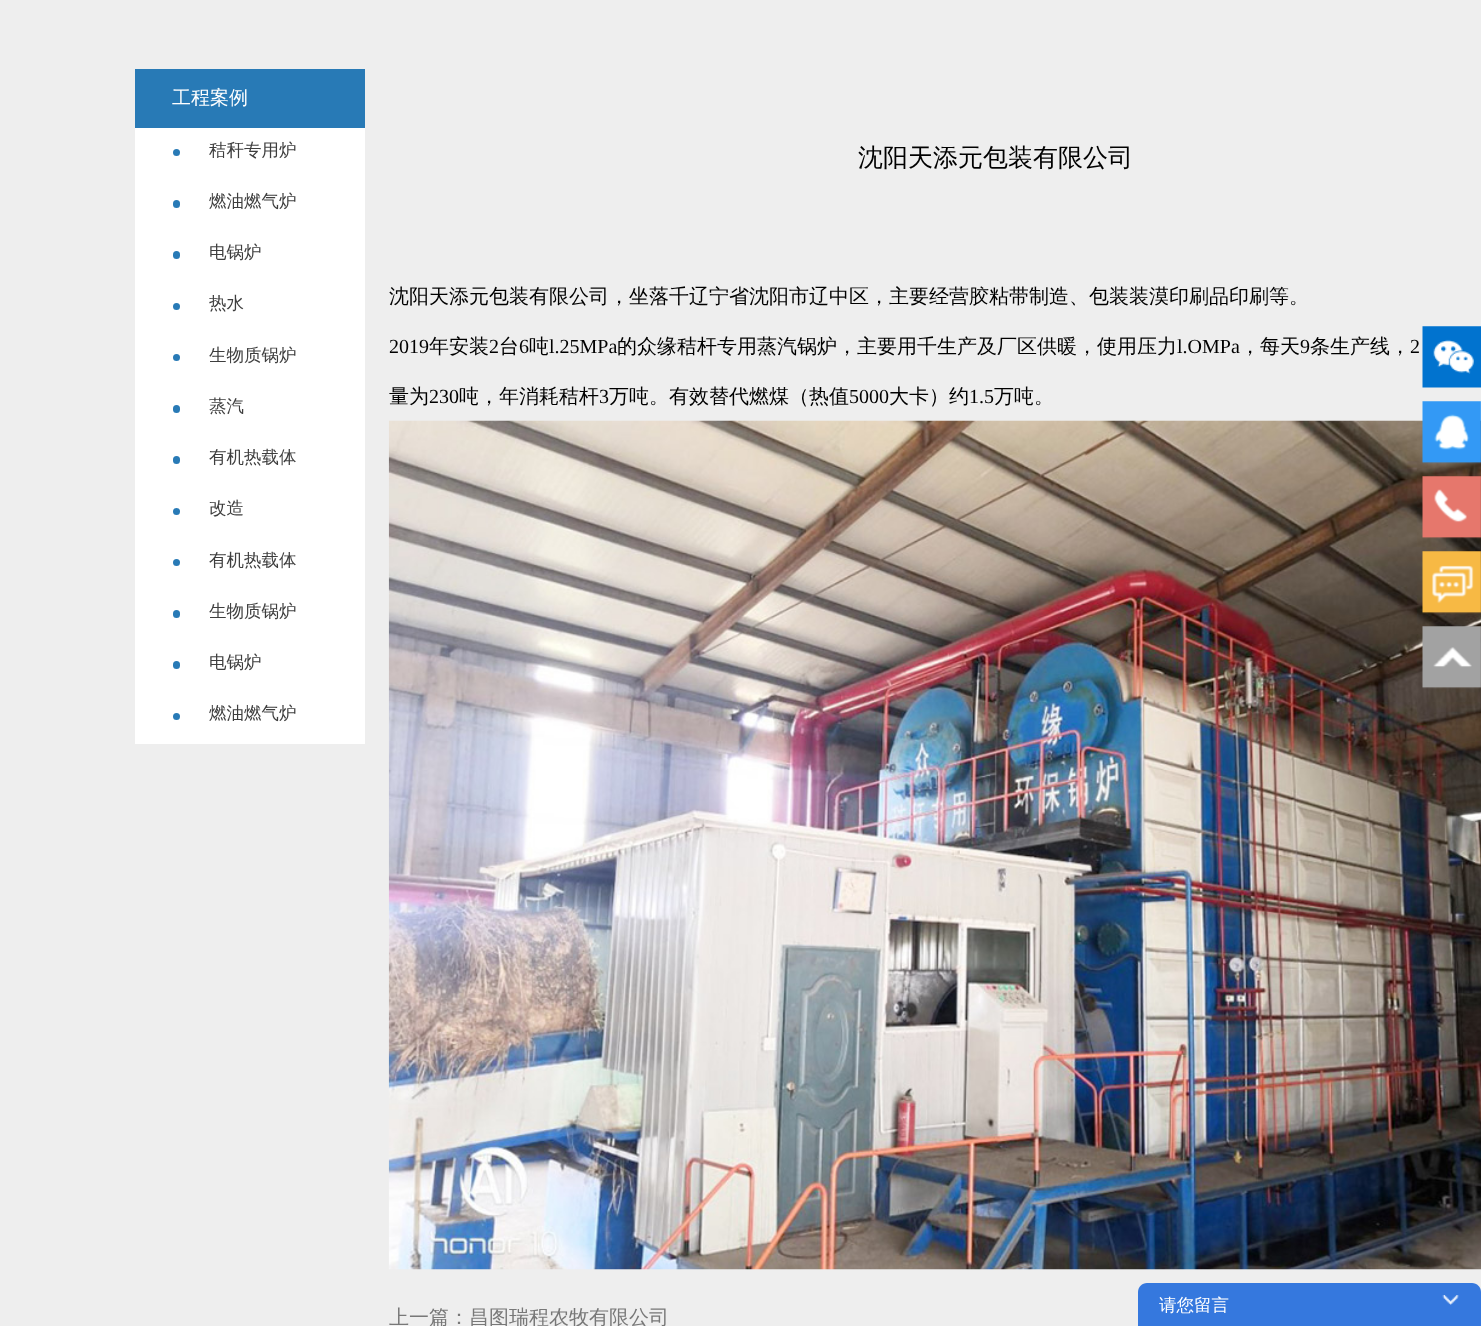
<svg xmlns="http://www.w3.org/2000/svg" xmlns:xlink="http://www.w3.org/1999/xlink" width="1481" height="1326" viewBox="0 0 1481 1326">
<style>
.cls-1{font:500 19px WenQuanYi Zen Hei;fill:#ffffff}
.cls-2{font:500 17.5px WenQuanYi Zen Hei;fill:#3e3e3e}
.cls-3{font:500 25px WenQuanYi Zen Hei;fill:#000000}
.cls-4{font:500 20px WenQuanYi Zen Hei;fill:#000000}
.cls-5{font:20px Liberation Serif;fill:#000000}
.cls-6{font:500 20px WenQuanYi Zen Hei;fill:#787878}
.cls-7{font:500 17.5px WenQuanYi Zen Hei;fill:#ffffff}
</style>
<rect width="100%" height="100%" fill="#eeeeee"/>
<rect fill="#ffffff" x="135" y="128" width="230" height="616"/>
<rect fill="#287ab6" x="135" y="69" width="230" height="59"/>
<circle fill="#287ab6" cx="176.5" cy="152.5" r="3.5"/>
<rect fill="#287ab6" x="173" y="200" width="7" height="8" rx="3.5"/>
<rect fill="#287ab6" x="173" y="251" width="7" height="8" rx="3.5"/>
<circle fill="#287ab6" cx="176.5" cy="306.5" r="3.5"/>
<circle fill="#287ab6" cx="176.5" cy="357.5" r="3.5"/>
<rect fill="#287ab6" x="173" y="405" width="7" height="8" rx="3.5"/>
<rect fill="#287ab6" x="173" y="456" width="7" height="8" rx="3.5"/>
<circle fill="#287ab6" cx="176.5" cy="511.5" r="3.5"/>
<circle fill="#287ab6" cx="176.5" cy="562.5" r="3.5"/>
<rect fill="#287ab6" x="173" y="610" width="7" height="8" rx="3.5"/>
<rect fill="#287ab6" x="173" y="661" width="7" height="8" rx="3.5"/>
<circle fill="#287ab6" cx="176.5" cy="716.5" r="3.5"/>
<image xlink:href="image0.png" x="388" y="420" width="1093" height="850"/>
<image xlink:href="image1.png" x="1422" y="326" width="59" height="62"/>
<image xlink:href="image2.png" x="1422" y="401" width="59" height="63"/>
<image xlink:href="image3.png" x="1422" y="476" width="59" height="63"/>
<image xlink:href="image4.png" x="1422" y="551" width="59" height="63"/>
<image xlink:href="image5.png" x="1422" y="626" width="59" height="63"/>
<path fill="#3578de" d="M1147 1283H1472C1477 1283 1481 1287 1481 1292V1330H1138V1292C1138 1287 1142 1283 1147 1283Z"/>
<image xlink:href="image6.png" x="1442" y="1295" width="17" height="10"/>
<text class="cls-1" x="172" y="104">工程案例</text>
<text class="cls-2" x="209" y="156">秸秆专用炉</text>
<text class="cls-2" x="209" y="207">燃油燃气炉</text>
<text class="cls-2" x="209" y="258">电锅炉</text>
<text class="cls-2" x="209" y="309">热水</text>
<text class="cls-2" x="209" y="361">生物质锅炉</text>
<text class="cls-2" x="209" y="412">蒸汽</text>
<text class="cls-2" x="209" y="463">有机热载体</text>
<text class="cls-2" x="209" y="514">改造</text>
<text class="cls-2" x="209" y="566">有机热载体</text>
<text class="cls-2" x="209" y="617">生物质锅炉</text>
<text class="cls-2" x="209" y="668">电锅炉</text>
<text class="cls-2" x="209" y="719">燃油燃气炉</text>
<text class="cls-3" x="858" y="166">沈阳天添元包装有限公司</text>
<text class="cls-4" x="389" y="303">沈阳天添元包装有限公司，坐落千辽宁省沈阳市辽中区，主要经营胶粘带制造、包装装漠印刷品印刷等。</text>
<text class="cls-5" x="389" y="353">2019</text>
<text class="cls-4" x="429" y="353">年安装</text>
<text class="cls-5" x="489" y="353">2</text>
<text class="cls-4" x="499" y="353">台</text>
<text class="cls-5" x="519" y="353">6</text>
<text class="cls-4" x="529" y="353">吨</text>
<text class="cls-5" x="549" y="353">l.25MPa</text>
<text class="cls-4" x="617" y="353">的众缘秸杆专用蒸汽锅炉，主要用千生产及厂区供暖，使用压力</text>
<text class="cls-5" x="1177" y="353">l.OMPa</text>
<text class="cls-4" x="1240" y="353">，每天</text>
<text class="cls-5" x="1300" y="353">9</text>
<text class="cls-4" x="1310" y="353">条生产线，</text>
<text class="cls-5" x="1410" y="353">2</text>
<text class="cls-4" x="389" y="403">量为</text>
<text class="cls-5" x="429" y="403">230</text>
<text class="cls-4" x="459" y="403">吨，年消耗秸杆</text>
<text class="cls-5" x="599" y="403">3</text>
<text class="cls-4" x="609" y="403">万吨。有效替代燃煤（热值</text>
<text class="cls-5" x="849" y="403">5000</text>
<text class="cls-4" x="889" y="403">大卡）约</text>
<text class="cls-5" x="969" y="403">1.5</text>
<text class="cls-4" x="994" y="403">万吨。</text>
<text class="cls-6" x="389" y="1324">上一篇：昌图瑞程农牧有限公司</text>
<text class="cls-7" x="1159" y="1311">请您留言</text>
</svg>
